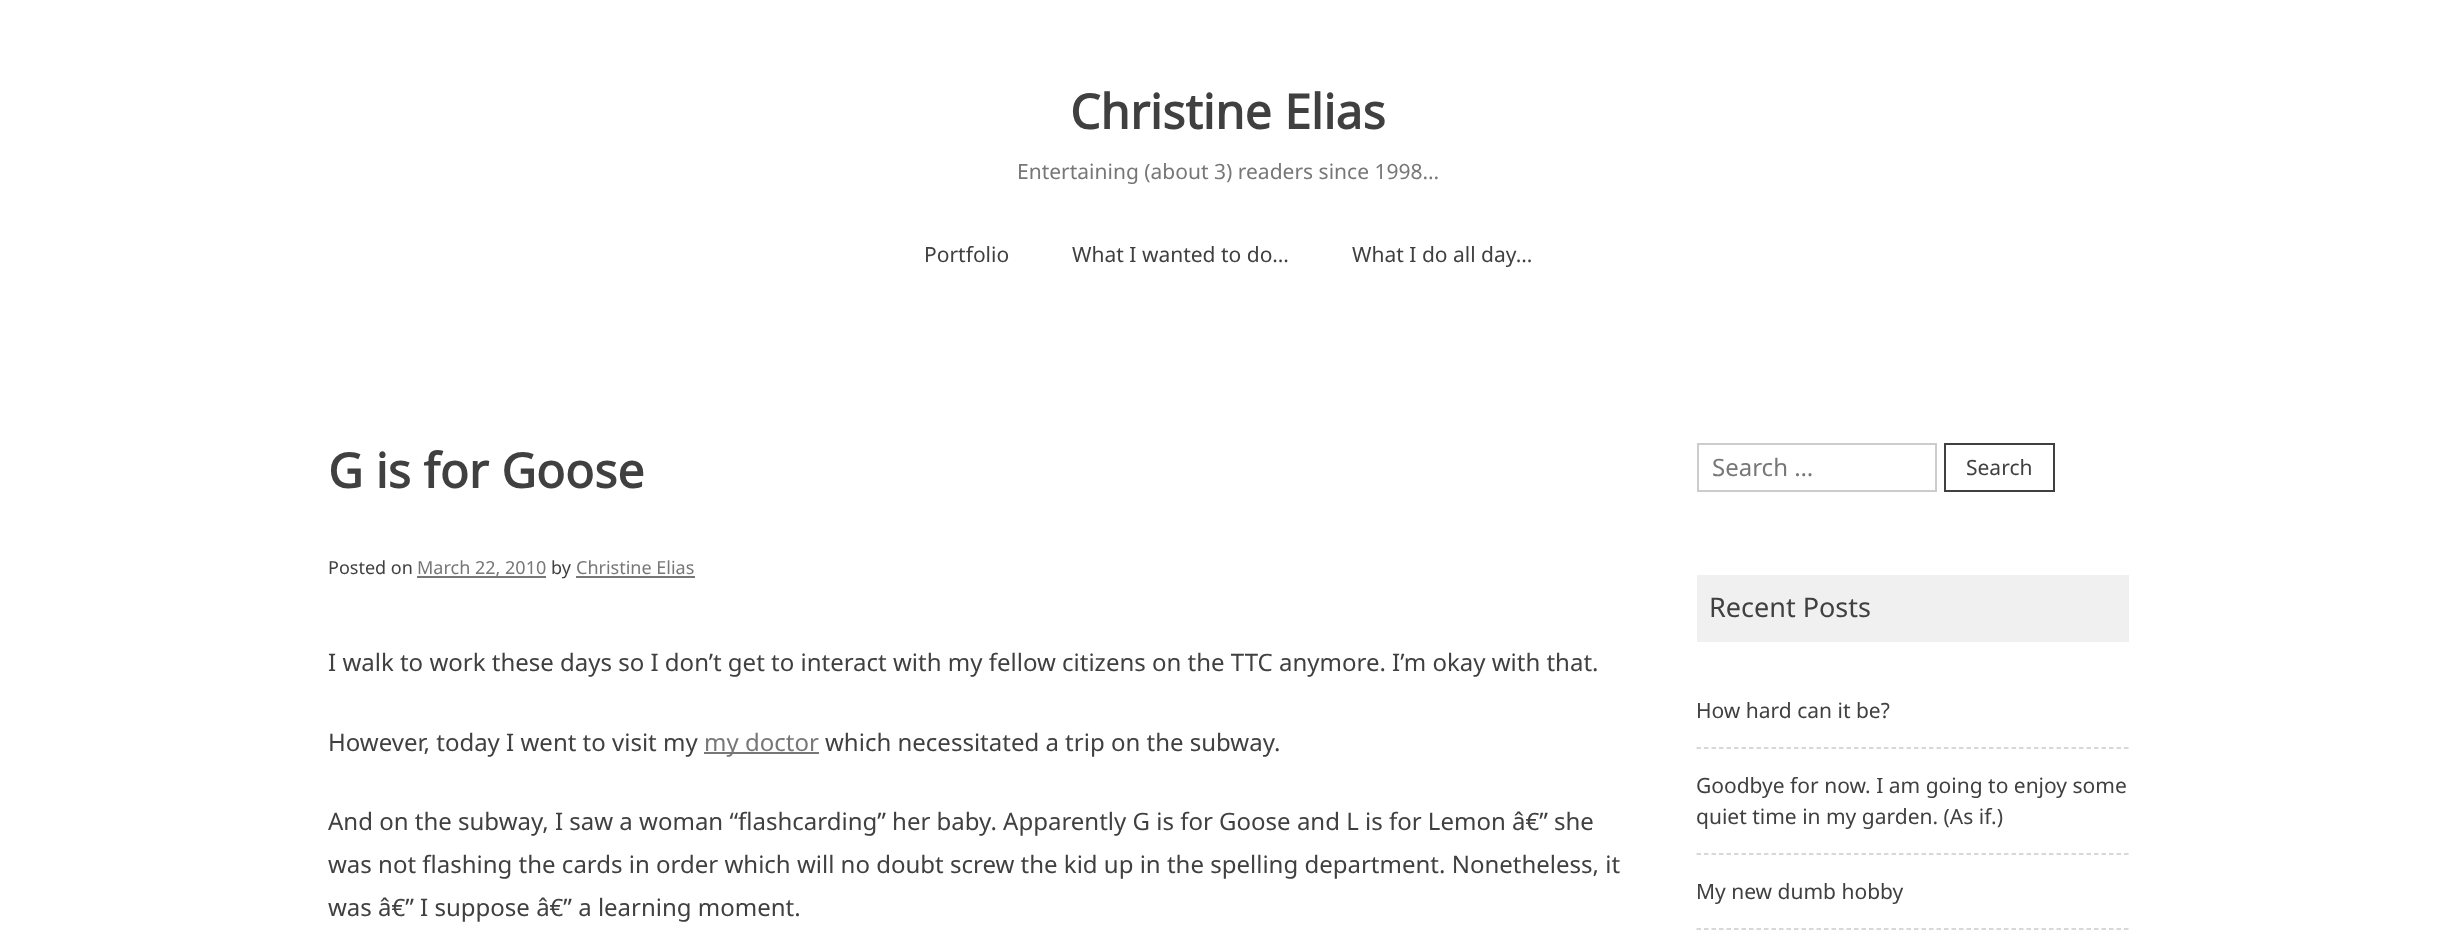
<svg xmlns="http://www.w3.org/2000/svg" xmlns:xlink="http://www.w3.org/1999/xlink" width="2455" height="937" viewBox="0 0 2455 937">
<style>
.cls-1{font:bold 48px Noto Sans;fill:#404040}
.cls-2{font:21px Noto Sans;fill:#777777}
.cls-3{font:21px Noto Sans;fill:#404040}
.cls-4{font:18px Noto Sans;fill:#404040}
.cls-5{font:18px Noto Sans;fill:#777777}
.cls-6{font:24px Noto Sans;fill:#404040}
.cls-7{font:24px Noto Sans;fill:#777777}
.cls-8{font:27px Noto Sans;fill:#404040}
</style>
<rect width="100%" height="100%" fill="#ffffff"/>
<rect fill="#777777" x="417" y="576" width="129" height="2"/>
<rect fill="#777777" x="576" y="576" width="119" height="2"/>
<rect fill="#777777" x="704" y="752" width="115" height="2"/>
<rect fill="none" stroke="#cccccc" stroke-width="2" x="1698" y="444" width="238" height="47"/>
<rect fill="none" stroke="#404040" stroke-width="2" x="1945" y="444" width="109" height="47"/>
<rect fill="#f0f0f0" x="1697" y="575" width="432" height="67"/>
<path fill="none" stroke="#cccccc" stroke-width="1.5" stroke-dasharray="4.5 3" d="M1696.5 748H2128.5"/>
<path fill="none" stroke="#cccccc" stroke-width="1.5" stroke-dasharray="4.5 3" d="M1696.5 854H2128.5"/>
<path fill="none" stroke="#cccccc" stroke-width="1.5" stroke-dasharray="4.5 3" d="M1696.5 929H2128.5"/>
<text class="cls-1" x="1070" y="129">Christine Elias</text>
<text class="cls-2" x="1017" y="179">Entertaining (about 3) readers since 1998…</text>
<text class="cls-3" x="924" y="262">Portfolio</text>
<text class="cls-3" x="1072" y="262">What I wanted to do…</text>
<text class="cls-3" x="1352" y="262">What I do all day…</text>
<text class="cls-1" x="328" y="488">G is for Goose</text>
<text class="cls-4" x="328" y="574">Posted on</text>
<text class="cls-5" x="417" y="574">March 22, 2010</text>
<text class="cls-4" x="551" y="574">by</text>
<text class="cls-5" x="576" y="574">Christine Elias</text>
<text class="cls-6" x="328" y="671">I walk to work these days so I don’t get to interact with my fellow citizens on the TTC anymore. I’m okay with that.</text>
<text class="cls-6" x="328" y="751">However, today I went to visit my</text>
<text class="cls-7" x="704" y="751">my doctor</text>
<text class="cls-6" x="825" y="751">which necessitated a trip on the subway.</text>
<text class="cls-6"><tspan x="328" y="830">And on the subway, I saw a woman “flashcarding” her baby. Apparently G is for Goose and L is for Lemon â€” she</tspan><tspan x="328" y="873">was not flashing the cards in order which will no doubt screw the kid up in the spelling department. Nonetheless, it</tspan><tspan x="328" y="916">was â€” I suppose â€” a learning moment.</tspan></text>
<text class="cls-7" x="1712" y="476">Search …</text>
<text class="cls-3" x="1966" y="475">Search</text>
<text class="cls-8" x="1709" y="617">Recent Posts</text>
<text class="cls-3" x="1696" y="718">How hard can it be?</text>
<text class="cls-3"><tspan x="1696" y="793">Goodbye for now. I am going to enjoy some</tspan><tspan x="1696" y="824">quiet time in my garden. (As if.)</tspan></text>
<text class="cls-3" x="1696" y="899">My new dumb hobby</text>
</svg>
